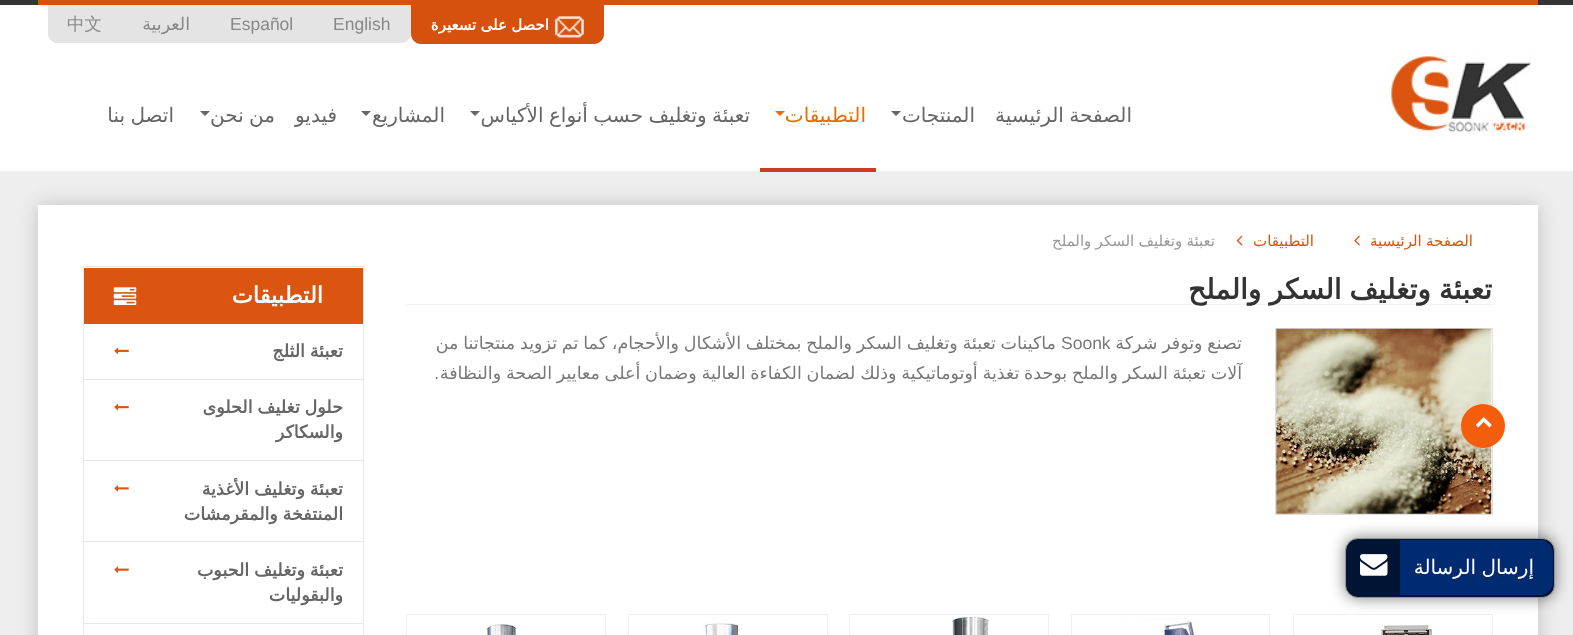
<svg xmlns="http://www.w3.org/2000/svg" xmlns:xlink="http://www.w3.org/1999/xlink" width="1573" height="635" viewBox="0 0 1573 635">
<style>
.cls-1{font:bold 15px DejaVu Sans;direction:rtl;fill:#ffffff}
.cls-2{font:17.5px Liberation Sans;fill:#888888}
.cls-3{font:17.5px DejaVu Sans;direction:rtl;fill:#888888}
.cls-4{font:500 17.5px WenQuanYi Zen Hei;fill:#888888}
.cls-5{font:20px DejaVu Sans;direction:rtl;fill:#666666}
.cls-6{font:20px DejaVu Sans;direction:rtl;fill:#ec6c00}
.cls-7{font:15px DejaVu Sans;direction:rtl;fill:#db5510}
.cls-8{font:15px DejaVu Sans;direction:rtl;fill:#999999}
.cls-9{font:bold 28px DejaVu Sans;direction:rtl;fill:#333333}
.cls-10{font:17.5px DejaVu Sans;direction:rtl;fill:#787878}
.cls-11{font:17.5px Liberation Sans;fill:#787878}
.cls-12{font:17.5px Liberation Sans;direction:rtl;fill:#787878}
.cls-13{font:bold 22.5px DejaVu Sans;direction:rtl;fill:#ffffff}
.cls-14{font:bold 17.5px DejaVu Sans;direction:rtl;fill:#666666}
.cls-15{font:20px DejaVu Sans;direction:rtl;fill:#ffffff}
</style>
<rect width="100%" height="100%" fill="#eeeeee"/>
<rect fill="#ffffff" x="0" y="5" width="1573" height="166"/>
<rect fill="#343434" x="0" y="0" width="1573" height="5"/>
<rect fill="#d5510d" x="38" y="0" width="1500" height="5"/>
<path fill="#d5510d" d="M411 5H604V34C604 39.5 599.5 44 594 44H421C415.5 44 411 39.5 411 34Z"/>
<image xlink:href="image0.png" x="554" y="16" width="30" height="22"/>
<path fill="#e4e4e4" d="M48 5H411V33C411 38.5 406.5 43 401 43H58C52.5 43 48 38.5 48 33Z"/>
<path fill="#e4e4e4" d="M314 5H411V33C411 38.5 406.5 43 401 43H324C318.5 43 314 38.5 314 33Z"/>
<path fill="#e4e4e4" d="M48 5H123V33C123 38.5 118.5 43 113 43H58C52.5 43 48 38.5 48 33Z"/>
<image xlink:href="image1.png" x="1388" y="54" width="147" height="80"/>
<path fill="#666666" d="M891 111H901L896 116Z"/>
<path fill="#ec6c00" d="M775 111H785L780 116Z"/>
<rect fill="#cf3b21" x="760" y="168" width="116" height="4"/>
<path fill="#666666" d="M470 111H480L475 116Z"/>
<path fill="#666666" d="M361 111H371L366 116Z"/>
<path fill="#666666" d="M200 111H210L205 116Z"/>
<rect fill="#c1c1c1" filter="blur(9.5px)" x="38" y="205" width="1500" height="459"/>
<rect fill="#ffffff" x="38" y="205" width="1500" height="430"/>
<image xlink:href="image2.png" x="1354" y="235" width="6" height="11"/>
<image xlink:href="image3.png" x="1236" y="235" width="7" height="11"/>
<rect fill="#f1f1f1" x="406" y="304" width="1087" height="1"/>
<rect fill="none" stroke="#dedede" x="1275.5" y="328.5" width="217" height="186"/>
<image xlink:href="image4.png" x="1276" y="328" width="216" height="186"/>
<rect fill="none" stroke="#eeeeee" x="1293.5" y="614.5" width="199" height="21"/>
<image xlink:href="image5.png" x="1293" y="615" width="139" height="20"/>
<rect fill="none" stroke="#eeeeee" x="1071.5" y="614.5" width="198" height="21"/>
<image xlink:href="image6.png" x="1123" y="618" width="73" height="17"/>
<rect fill="none" stroke="#eeeeee" x="849.5" y="614.5" width="199" height="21"/>
<image xlink:href="image7.png" x="952" y="617" width="37" height="18"/>
<rect fill="none" stroke="#eeeeee" x="628.5" y="614.5" width="199" height="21"/>
<image xlink:href="image8.png" x="628" y="615" width="111" height="20"/>
<rect fill="none" stroke="#eeeeee" x="406.5" y="614.5" width="199" height="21"/>
<image xlink:href="image9.png" x="486" y="624" width="30" height="11"/>
<rect fill="none" stroke="#e3e8e8" x="83.5" y="266.5" width="280" height="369"/>
<rect fill="#db5510" x="84" y="268" width="279" height="56"/>
<image xlink:href="image10.png" x="113" y="287" width="24" height="18"/>
<rect fill="#e3e8e8" x="84" y="379" width="279" height="1"/>
<image xlink:href="image11.png" x="114" y="347" width="15" height="8"/>
<rect fill="#e3e8e8" x="84" y="460" width="279" height="1"/>
<image xlink:href="image12.png" x="114" y="404" width="15" height="7"/>
<rect fill="#e3e8e8" x="84" y="541" width="279" height="1"/>
<image xlink:href="image13.png" x="114" y="485" width="15" height="7"/>
<rect fill="#e3e8e8" x="84" y="623" width="279" height="1"/>
<image xlink:href="image14.png" x="114" y="566" width="15" height="7"/>
<rect fill="#000000" fill-opacity="0.5" filter="blur(7.5px)" x="1345" y="538" width="210" height="60" rx="13"/>
<rect fill="#001434" stroke="#999999" x="1345.5" y="538.5" width="209" height="59" rx="12.5"/>
<path fill="#002b70" d="M1400 540H1540C1547 540 1553 546 1553 553V582C1553 589 1547 595 1540 595H1400Z"/>
<image xlink:href="image15.png" x="1360" y="554" width="28" height="22"/>
<circle fill="#f35d0b" cx="1483" cy="426" r="22"/>
<image xlink:href="image16.png" x="1475" y="417" width="17" height="11"/>
<text class="cls-1" x="549" y="30" word-spacing="-0.5">احصل على تسعيرة</text>
<text class="cls-2" x="333" y="30">English</text>
<text class="cls-2" x="230" y="30">Español</text>
<text class="cls-3" x="190" y="30">العربية</text>
<text class="cls-4" x="67" y="30">中文</text>
<text class="cls-5" x="1132" y="122" word-spacing="-1">الصفحة الرئيسية</text>
<text class="cls-5" x="975" y="122">المنتجات</text>
<text class="cls-6" x="866" y="122">التطبيقات</text>
<text class="cls-5" x="750" y="122" word-spacing="-1">تعبئة وتغليف حسب أنواع الأكياس</text>
<text class="cls-5" x="445" y="122">المشاريع</text>
<text class="cls-5" x="337" y="122">فيديو</text>
<text class="cls-5" x="275" y="122" word-spacing="-1">من نحن</text>
<text class="cls-5" x="174" y="122" word-spacing="-1">اتصل بنا</text>
<text class="cls-7" x="1473" y="246" word-spacing="-0.5">الصفحة الرئيسية</text>
<text class="cls-7" x="1314" y="246">التطبيقات</text>
<text class="cls-8" x="1215" y="246" word-spacing="-0.5">تعبئة وتغليف السكر والملح</text>
<text class="cls-9" x="1492" y="299" word-spacing="-1">تعبئة وتغليف السكر والملح</text>
<text class="cls-10" x="1242" y="349" word-spacing="-0.75">تصنع وتوفر شركة</text>
<text class="cls-10" x="1056" y="349" word-spacing="-0.75">ماكينات تعبئة وتغليف السكر والملح بمختلف الأشكال والأحجام، كما تم تزويد منتجاتنا من</text>
<text class="cls-11" x="1061" y="349">Soonk</text>
<text class="cls-10" x="1242" y="379" word-spacing="-0.75">آلات تعبئة السكر والملح بوحدة تغذية أوتوماتيكية وذلك لضمان الكفاءة العالية وضمان أعلى معايير الصحة والنظافة</text>
<text class="cls-12" x="439" y="379">.</text>
<text class="cls-13" x="323" y="303">التطبيقات</text>
<text class="cls-14" x="343" y="357" word-spacing="-0.75">تعبئة الثلج</text>
<text class="cls-14"><tspan x="343" y="413" word-spacing="-0.75">حلول تغليف الحلوى</tspan><tspan x="343" y="438">والسكاكر</tspan></text>
<text class="cls-14"><tspan x="343" y="495" word-spacing="-0.75">تعبئة وتغليف الأغذية</tspan><tspan x="343" y="520" word-spacing="-0.75">المنتفخة والمقرمشات</tspan></text>
<text class="cls-14"><tspan x="343" y="576" word-spacing="-0.75">تعبئة وتغليف الحبوب</tspan><tspan x="343" y="601">والبقوليات</tspan></text>
<text class="cls-15" x="1534" y="574" word-spacing="-1">إرسال الرسالة</text>
</svg>
